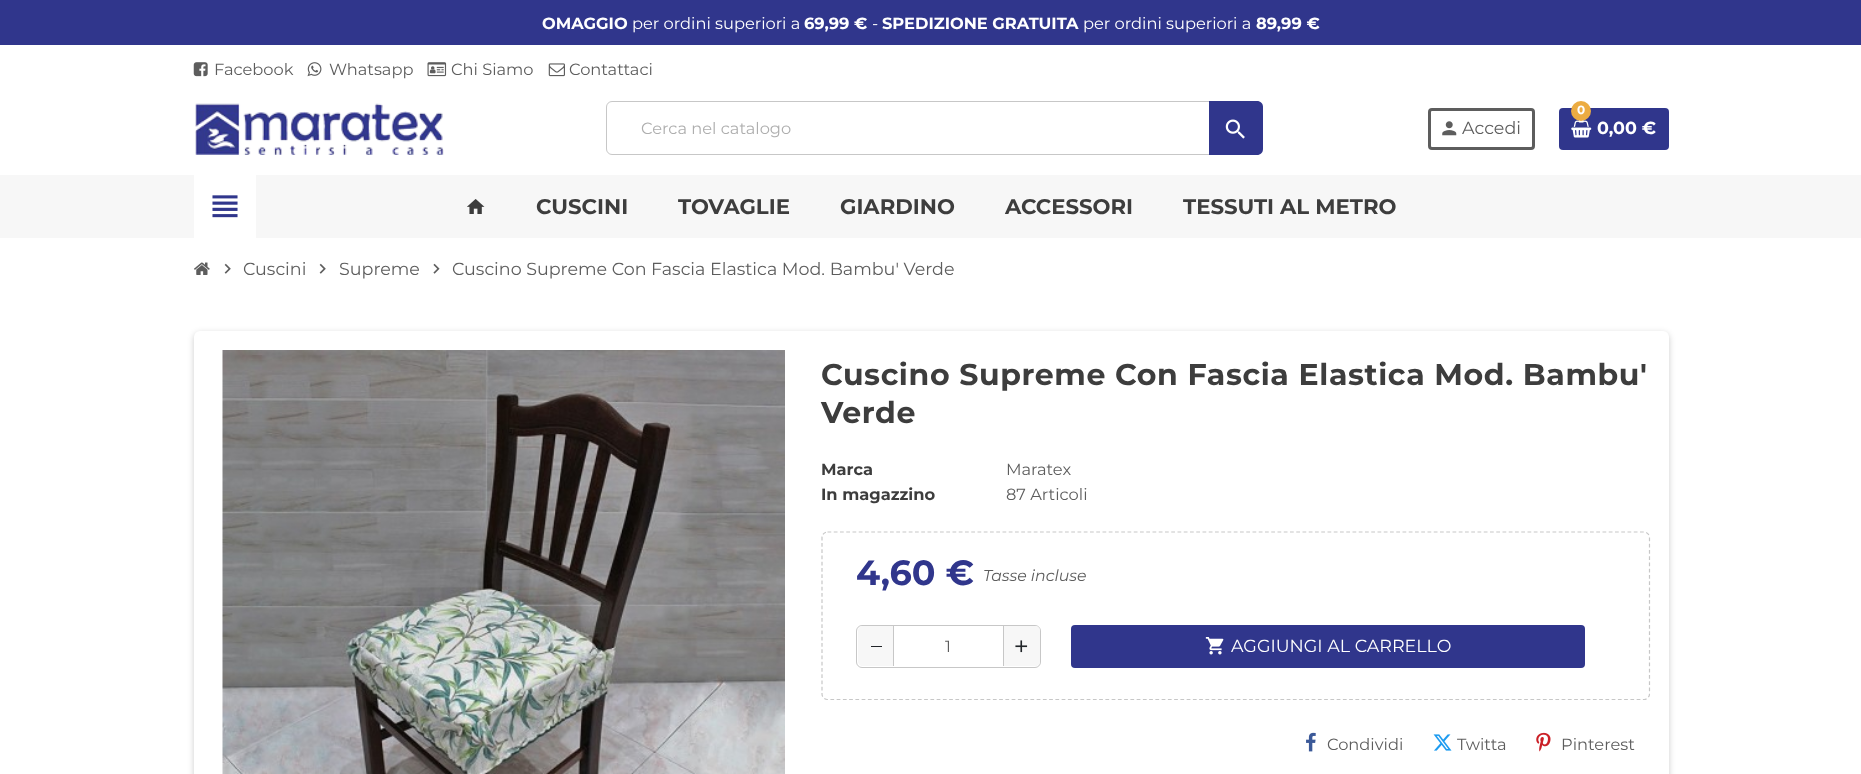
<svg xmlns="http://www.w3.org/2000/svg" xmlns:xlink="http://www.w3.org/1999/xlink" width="1861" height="774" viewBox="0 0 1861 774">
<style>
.cls-1{font:bold 16.25px Montserrat;fill:#ffffff}
.cls-2{font:16.25px Montserrat;fill:#ffffff}
.cls-3{font:16.25px Montserrat;fill:#5d5d5d}
.cls-4{font:16.25px Montserrat;fill:#aeaeae}
.cls-5{font:17.5px Montserrat;fill:#5d5d5d}
.cls-6{font:bold 12px Montserrat;fill:#ffffff}
.cls-7{font:bold 17.5px Montserrat;fill:#ffffff}
.cls-8{font:bold 21.25px Montserrat;fill:#3d3d3d}
.cls-9{font:bold 30px Montserrat;letter-spacing:0.6px;fill:#3d3d3d}
.cls-10{font:bold 16.25px Montserrat;fill:#3d3d3d}
.cls-11{font:bold 35px Montserrat;fill:#30368c}
.cls-12{font:italic 15.75px Montserrat;fill:#5d5d5d}
.cls-13{font:17.5px Montserrat;fill:#ffffff}
</style>
<rect width="100%" height="100%" fill="#ffffff"/>
<rect fill="#30368c" x="0" y="0" width="1861" height="45"/>
<image xlink:href="image0.png" x="193" y="62" width="15" height="15"/>
<image xlink:href="image1.png" x="307" y="62" width="15" height="15"/>
<image xlink:href="image2.png" x="427" y="62" width="20" height="15"/>
<image xlink:href="image3.png" x="548" y="63" width="17" height="14"/>
<image xlink:href="image4.png" x="195" y="103" width="249" height="52"/>
<rect fill="none" stroke="#c7c7c7" x="606.5" y="101.5" width="654" height="53" rx="5.5"/>
<path fill="#30368c" d="M1209 101H1257C1260.5 101 1263 103.5 1263 107V149C1263 152.5 1260.5 155 1257 155H1209Z"/>
<image xlink:href="image5.png" x="1225" y="119" width="20" height="20"/>
<rect fill="none" stroke="#5d5d5d" stroke-width="3" x="1429.5" y="109.5" width="104" height="39" rx="2.5"/>
<image xlink:href="image6.png" x="1442" y="121" width="15" height="15"/>
<rect fill="#30368c" x="1559" y="108" width="110" height="42" rx="4"/>
<image xlink:href="image7.png" x="1571" y="120" width="21" height="18"/>
<circle fill="#ecac42" cx="1581" cy="111" r="10"/>
<rect fill="#f7f7f7" x="0" y="175" width="1861" height="63"/>
<rect fill="#ffffff" x="194" y="175" width="62" height="63"/>
<image xlink:href="image8.png" x="212" y="195" width="26" height="23"/>
<image xlink:href="image9.png" x="467" y="199" width="18" height="15"/>
<image xlink:href="image10.png" x="194" y="262" width="16" height="13"/>
<image xlink:href="image11.png" x="224" y="263" width="7" height="11"/>
<image xlink:href="image11.png" x="319" y="263" width="7" height="11"/>
<image xlink:href="image12.png" x="433" y="263" width="7" height="11"/>
<rect fill="#000000" fill-opacity="0.2" filter="blur(3px)" x="194" y="333" width="1475" height="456" rx="6"/>
<rect fill="#ffffff" x="194" y="331" width="1475" height="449" rx="6"/>
<image xlink:href="image13.png" x="222" y="350" width="563" height="424"/>
<path fill="none" stroke="#c7c7c7" stroke-width="1.2" stroke-dasharray="3.75 2.5" d="M827.5 532H1644C1647 532 1649.5 534.5 1649.5 537.5V694C1649.5 697 1647 699.5 1644 699.5H827.5C824.5 699.5 822 697 822 694V537.5C822 534.5 824.5 532 827.5 532Z"/>
<rect fill="none" stroke="#c7c7c7" x="856.5" y="625.5" width="184" height="42" rx="5.5"/>
<path fill="#f7f7f7" d="M863 626H895V666H863C860 666 858 664 858 661V631C858 628 860 626 863 626Z"/>
<rect fill="#212529" x="871" y="646" width="11" height="1"/>
<rect fill="#ffffff" x="894" y="626" width="1" height="40"/>
<path fill="#f7f7f7" d="M1003 626H1035C1038 626 1040 628 1040 631V661C1040 664 1038 666 1035 666H1003Z"/>
<rect fill="#c7c7c7" x="1003" y="626" width="1" height="40"/>
<rect fill="#c7c7c7" x="893" y="626" width="1" height="40"/>
<image xlink:href="image14.png" x="1015" y="640" width="13" height="13"/>
<rect fill="#30368c" x="1071" y="625" width="514" height="43" rx="4"/>
<image xlink:href="image15.png" x="1205" y="637" width="19" height="18"/>
<image xlink:href="image16.png" x="1306" y="732" width="10" height="20"/>
<image xlink:href="image17.png" x="1433" y="734" width="19" height="17"/>
<image xlink:href="image18.png" x="1536" y="732" width="15" height="20"/>
<text class="cls-1" x="542" y="29">OMAGGIO</text>
<text class="cls-2" x="632" y="29">per ordini superiori a</text>
<text class="cls-1" x="804" y="29">69,99 €</text>
<text class="cls-2" x="872" y="29">-</text>
<text class="cls-1" x="882" y="29">SPEDIZIONE GRATUITA</text>
<text class="cls-2" x="1083" y="29">per ordini superiori a</text>
<text class="cls-1" x="1256" y="29">89,99 €</text>
<text class="cls-3" x="214" y="75">Facebook</text>
<text class="cls-3" x="329" y="75">Whatsapp</text>
<text class="cls-3" x="451" y="75">Chi Siamo</text>
<text class="cls-3" x="569" y="75">Contattaci</text>
<text class="cls-4" x="641" y="134">Cerca nel catalogo</text>
<text class="cls-5" x="1462" y="134">Accedi</text>
<text class="cls-6" x="1577" y="114">0</text>
<text class="cls-7" x="1597" y="134">0,00 €</text>
<text class="cls-8" x="536" y="214">CUSCINI</text>
<text class="cls-8" x="678" y="214">TOVAGLIE</text>
<text class="cls-8" x="840" y="214">GIARDINO</text>
<text class="cls-8" x="1005" y="214">ACCESSORI</text>
<text class="cls-8" x="1183" y="214">TESSUTI AL METRO</text>
<text class="cls-5" x="243" y="275">Cuscini</text>
<text class="cls-5" x="339" y="275">Supreme</text>
<text class="cls-5" x="452" y="275">Cuscino Supreme Con Fascia Elastica Mod. Bambu' Verde</text>
<text class="cls-9"><tspan x="821" y="385">Cuscino Supreme Con Fascia Elastica Mod. Bambu'</tspan><tspan x="821" y="423">Verde</tspan></text>
<text class="cls-10" x="821" y="475">Marca</text>
<text class="cls-3" x="1006" y="475">Maratex</text>
<text class="cls-10" x="821" y="500">In magazzino</text>
<text class="cls-3" x="1006" y="500">87 Articoli</text>
<text class="cls-11" x="856" y="585">4,60 €</text>
<text class="cls-12" x="983" y="581">Tasse incluse</text>
<text class="cls-3" x="945" y="652">1</text>
<text class="cls-13" x="1231" y="652">AGGIUNGI AL CARRELLO</text>
<text class="cls-3" x="1327" y="750">Condividi</text>
<text class="cls-3" x="1457" y="750">Twitta</text>
<text class="cls-3" x="1561" y="750">Pinterest</text>
</svg>
